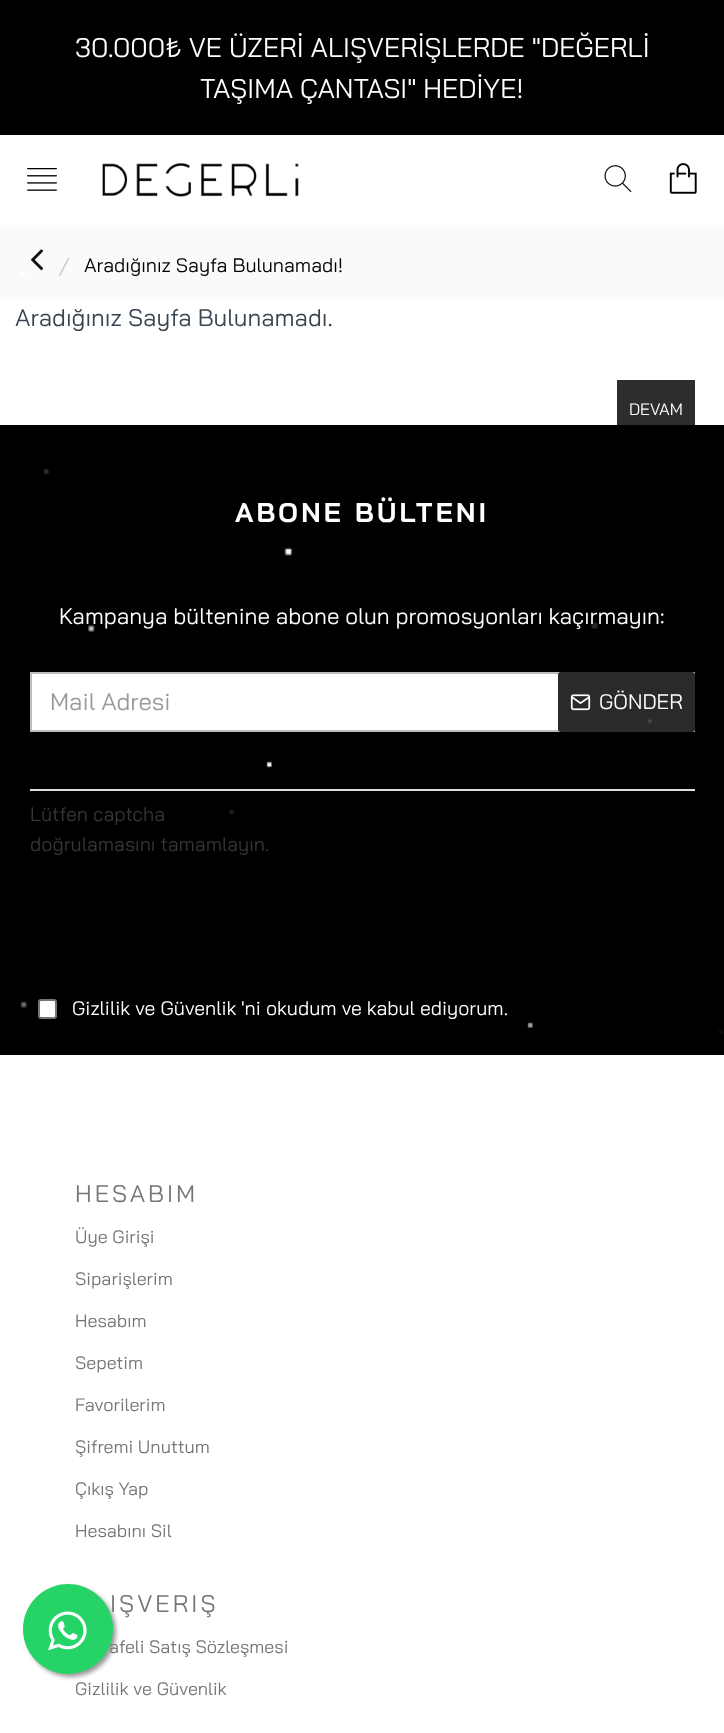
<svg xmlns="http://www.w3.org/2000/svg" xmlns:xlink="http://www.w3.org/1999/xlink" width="724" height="1733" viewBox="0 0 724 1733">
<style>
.cls-1{font:27px Bai Jamjuree;fill:#ffffff}
.cls-2{font:24px Bai Jamjuree;fill:#cccccc}
.cls-3{font:19.5px Bai Jamjuree;fill:#000000}
.cls-4{font:24px Bai Jamjuree;fill:#38444f}
.cls-5{font:16.5px Bai Jamjuree;fill:#ffffff}
.cls-6{font:bold 27px Bai Jamjuree;letter-spacing:3.25px;fill:#ffffff}
.cls-7{font:22.5px Bai Jamjuree;fill:#ffffff}
.cls-8{font:24px Bai Jamjuree;fill:#999999}
.cls-9{font:21px Bai Jamjuree;fill:#ffffff}
.cls-10{font:19.5px Bai Jamjuree;fill:#363636}
.cls-11{font:19.5px Bai Jamjuree;fill:#ffffff}
.cls-12{font:24px Bai Jamjuree;letter-spacing:3px;fill:#767676}
.cls-13{font:18px Bai Jamjuree;fill:#767676}
</style>
<rect width="100%" height="100%" fill="#ffffff"/>
<rect fill="#000000" x="0" y="0" width="724" height="135"/>
<image xlink:href="image0.png" x="102" y="162" width="197" height="35"/>
<image xlink:href="image1.png" x="27" y="168" width="30" height="23"/>
<image xlink:href="image2.png" x="604" y="165" width="28" height="28"/>
<image xlink:href="image3.png" x="669" y="163" width="28" height="31"/>
<rect fill="#fafafa" x="0" y="225" width="724" height="74"/>
<image xlink:href="image4.png" x="31" y="249" width="13" height="22"/>
<rect fill="#2d2d2d" x="617" y="380" width="78" height="45"/>
<rect fill="#000000" x="0" y="425" width="724" height="630"/>
<rect fill="#ffffff" x="32" y="674" width="527" height="56"/>
<rect fill="none" stroke="#bdbdbd" stroke-width="2" x="31" y="673" width="663" height="58"/>
<rect fill="#2a2a2a" x="558" y="672" width="137" height="60" rx="3"/>
<image xlink:href="image5.png" x="570" y="694" width="21" height="17"/>
<rect fill="#dddddd" x="30" y="789" width="665" height="2"/>
<rect fill="#ffffff" stroke="#767676" stroke-width="2" x="39" y="1000" width="17" height="18" rx="2"/>
<rect fill="#999999" filter="blur(2px)" x="26" y="1587" width="90" height="90" rx="45"/>
<text class="cls-1" x="75" y="57">30.000₺ VE ÜZERİ ALIŞVERİŞLERDE "DEĞERLİ</text>
<text class="cls-1" x="200" y="98">TAŞIMA ÇANTASI" HEDİYE!</text>
<text class="cls-2" x="58" y="275">/</text>
<text class="cls-3" x="84" y="272">Aradığınız Sayfa Bulunamadı!</text>
<text class="cls-4" x="15" y="326">Aradığınız Sayfa Bulunamadı.</text>
<text class="cls-5" x="629" y="415">DEVAM</text>
<text class="cls-6" x="235" y="522">ABONE BÜLTENI</text>
<text class="cls-7" x="59" y="624">Kampanya bültenine abone olun promosyonları kaçırmayın:</text>
<text class="cls-8" x="50" y="710">Mail Adresi</text>
<text class="cls-9" x="599" y="709">GÖNDER</text>
<text class="cls-10"><tspan x="30" y="821">Lütfen captcha</tspan><tspan x="30" y="851">doğrulamasını tamamlayın.</tspan></text>
<text class="cls-11" x="72" y="1015">Gizlilik ve Güvenlik</text>
<text class="cls-11" x="241" y="1015">'ni okudum ve kabul ediyorum.</text>
<text class="cls-12" x="75" y="1202">HESABIM</text>
<text class="cls-13" x="75" y="1243">Üye Girişi</text>
<text class="cls-13" x="75" y="1285">Siparişlerim</text>
<text class="cls-13" x="75" y="1327">Hesabım</text>
<text class="cls-13" x="75" y="1369">Sepetim</text>
<text class="cls-13" x="75" y="1411">Favorilerim</text>
<text class="cls-13" x="75" y="1453">Şifremi Unuttum</text>
<text class="cls-13" x="75" y="1495">Çıkış Yap</text>
<text class="cls-13" x="75" y="1537">Hesabını Sil</text>
<text class="cls-12" x="110" y="1612">IŞVERIŞ</text>
<text class="cls-13" x="109" y="1653">afeli Satış Sözleşmesi</text>
<text class="cls-13" x="75" y="1695">Gizlilik ve Güvenlik</text>
<image xlink:href="image6.png" x="20" y="272" width="703" height="762"/>
<circle fill="#25d366" cx="68" cy="1629" r="45"/>
<image xlink:href="image7.png" x="48" y="1611" width="39" height="40"/>
</svg>
